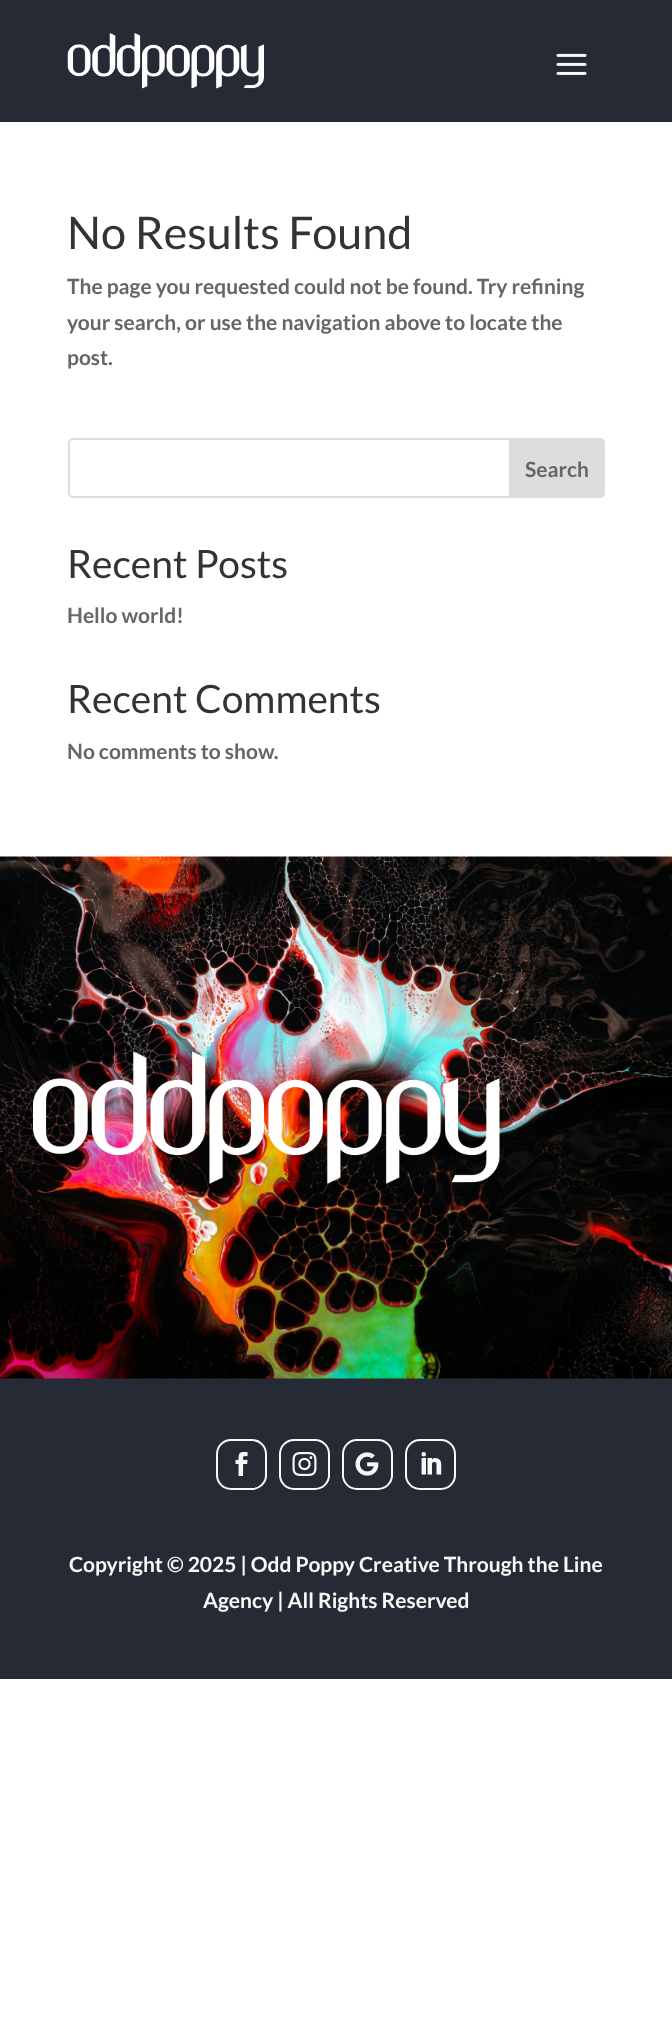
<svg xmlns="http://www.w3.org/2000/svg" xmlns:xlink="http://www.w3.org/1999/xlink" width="672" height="2026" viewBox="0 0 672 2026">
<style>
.cls-1{font:45px Lato;fill:#333333}
.cls-2{font:bold 21px Lato;fill:#666666}
.cls-3{font:39px Lato;fill:#333333}
.cls-4{font:bold 21px Lato;fill:#f8f8f8}
</style>
<rect width="100%" height="100%" fill="#ffffff"/>
<rect fill="#262a34" x="0" y="0" width="672" height="122"/>
<image xlink:href="image0.png" x="67" y="33" width="197" height="56"/>
<image xlink:href="image1.png" x="556" y="53" width="31" height="22"/>
<rect fill="none" stroke="#dddddd" stroke-width="2" x="69" y="439" width="535" height="58" rx="4"/>
<path fill="#dddddd" stroke="#dddddd" stroke-width="2" d="M510 439H600C602 439 604 441 604 443V493C604 495 602 497 600 497H510Z"/>
<rect fill="#262a34" x="0" y="1378" width="672" height="301"/>
<image xlink:href="image2.png" x="0" y="856" width="672" height="523"/>
<image xlink:href="image3.png" x="33" y="1051" width="467" height="133"/>
<rect fill="none" stroke="#f8f8f8" stroke-width="2" x="217" y="1440" width="49" height="49" rx="14"/>
<image xlink:href="image4.png" x="235" y="1452" width="13" height="24"/>
<rect fill="none" stroke="#f8f8f8" stroke-width="2" x="280" y="1440" width="49" height="49" rx="14"/>
<image xlink:href="image5.png" x="292" y="1452" width="25" height="24"/>
<rect fill="none" stroke="#f8f8f8" stroke-width="2" x="343" y="1440" width="49" height="49" rx="14"/>
<image xlink:href="image6.png" x="355" y="1452" width="24" height="24"/>
<rect fill="none" stroke="#f8f8f8" stroke-width="2" x="406" y="1440" width="49" height="49" rx="14"/>
<image xlink:href="image7.png" x="421" y="1452" width="21" height="23"/>
<text class="cls-1" x="67" y="249">No Results Found</text>
<text class="cls-2"><tspan x="67" y="294">The page you requested could not be found. Try refining</tspan><tspan x="67" y="330">your search, or use the navigation above to locate the</tspan><tspan x="67" y="365">post.</tspan></text>
<text class="cls-2" x="525" y="477">Search</text>
<text class="cls-3" x="67" y="578">Recent Posts</text>
<text class="cls-2" x="67" y="623">Hello world!</text>
<text class="cls-3" x="67" y="713">Recent Comments</text>
<text class="cls-2" x="67" y="759">No comments to show.</text>
<text class="cls-4" x="69" y="1572">Copyright © 2025 | Odd Poppy Creative Through the Line</text>
<text class="cls-4" x="203" y="1608">Agency | All Rights Reserved</text>
</svg>
